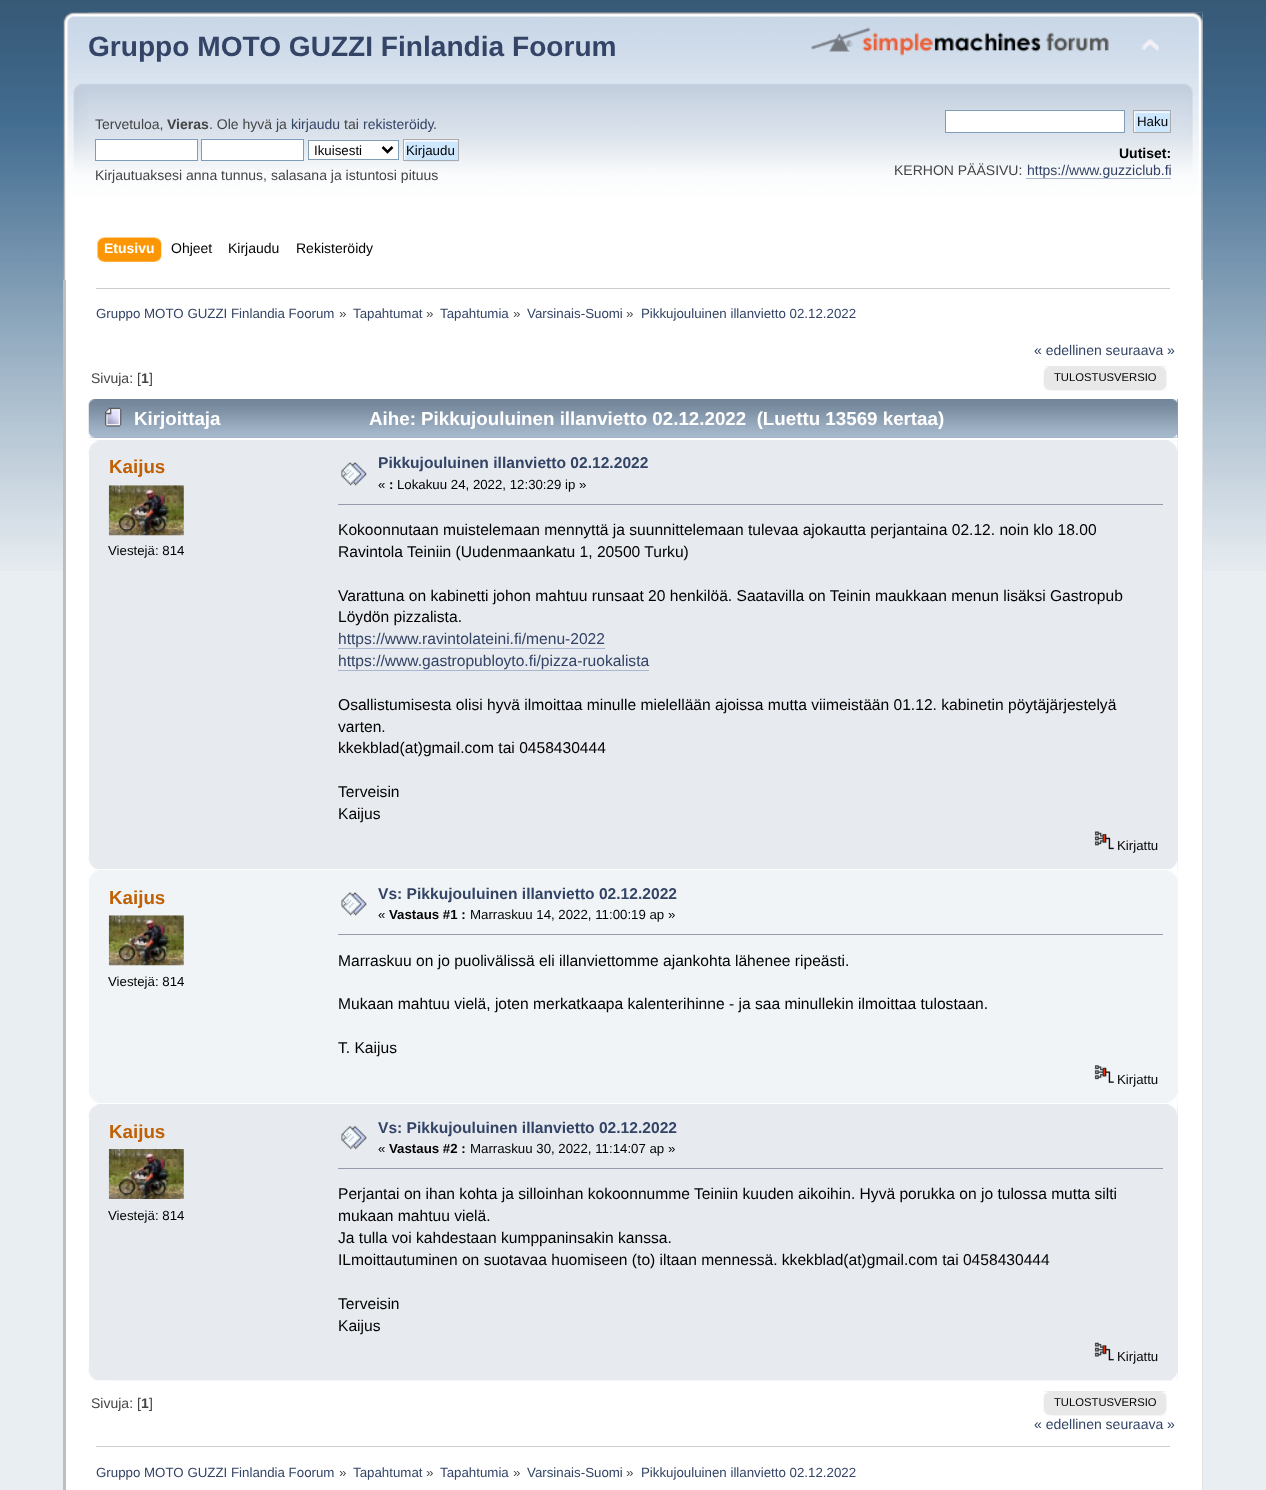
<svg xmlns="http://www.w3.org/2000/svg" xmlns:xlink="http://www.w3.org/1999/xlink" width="1266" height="1490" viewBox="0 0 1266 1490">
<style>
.cls-1{font:bold 28.1px Liberation Sans;fill:#334466}
.cls-2{font:14px Liberation Sans;fill:#444444}
.cls-3{font:bold 14px Liberation Sans;fill:#444444}
.cls-4{font:14px Liberation Sans;fill:#334466}
.cls-5{font:13.3px Liberation Sans;fill:#000000}
.cls-6{font:bold 14px Liberation Sans;fill:#000000}
.cls-7{font:bold 14px Liberation Sans;fill:#ffffff}
.cls-8{font:14px Liberation Sans;fill:#000000}
.cls-9{font:13.3px Liberation Sans;fill:#334466}
.cls-10{font:13.3px Liberation Sans;fill:#444444}
.cls-11{font:11.25px Liberation Sans;fill:#000000}
.cls-12{font:bold 18.75px Liberation Sans;fill:#ffffff}
.cls-13{font:bold 18.75px Liberation Sans;fill:#c06002}
.cls-14{font:13.25px Liberation Sans;fill:#000000}
.cls-15{font:bold 15.6px Liberation Sans;fill:#334466}
.cls-16{font:bold 13.25px Liberation Sans;fill:#000000}
.cls-17{font:15.6px Liberation Sans;fill:#000000}
.cls-18{font:15.6px Liberation Sans;fill:#334466}
</style>
<rect width="100%" height="100%" fill="#e9eef2"/>
<image xlink:href="image0.png" x="0" y="0" width="1266" height="571"/>
<image xlink:href="image1.png" x="63" y="12" width="1140" height="268"/>
<image xlink:href="image2.png" x="88" y="12" width="1115" height="268"/>
<image xlink:href="image3.png" x="811" y="27" width="298" height="29"/>
<image xlink:href="image4.png" x="1141" y="39" width="19" height="13"/>
<rect fill="#ffffff" stroke="#7f9db9" x="95.5" y="139.5" width="102" height="21"/>
<rect fill="#ffffff" stroke="#7f9db9" x="201.5" y="139.5" width="102" height="21"/>
<rect fill="#ffffff" stroke="#7f9db9" x="308.5" y="140.5" width="90" height="19"/>
<path fill="none" stroke="#000000" stroke-width="2.5" d="M382.5 147L387.5 152L392.5 147"/>
<image xlink:href="image5.png" x="403" y="140" width="56" height="22"/>
<rect fill="none" stroke="#aaaaaa" x="403.5" y="139.5" width="55" height="21"/>
<rect fill="#ffffff" stroke="#7f9db9" x="945.5" y="110.5" width="179" height="22"/>
<rect fill="#cde7ff" x="1134" y="111" width="36" height="1"/>
<image xlink:href="image6.png" x="1134" y="111" width="38" height="22"/>
<rect fill="none" stroke="#aaaaaa" x="1133.5" y="110.5" width="37" height="22"/>
<rect fill="#a8b6cf" x="1026" y="178" width="145" height="1"/>
<image xlink:href="image7.png" x="103" y="237" width="59" height="25"/>
<image xlink:href="image8.png" x="97" y="237" width="58" height="25"/>
<rect fill="#ffffff" x="66" y="280" width="1137" height="1210"/>
<rect fill="#bebebe" x="63" y="280" width="3" height="1210"/>
<image xlink:href="image9.png" x="1202" y="280" width="1" height="1210"/>
<rect fill="#cccccc" x="96" y="288" width="1074" height="1"/>
<rect fill="#e8e8e8" x="1044" y="366" width="122" height="1"/>
<image xlink:href="image10.png" x="1043" y="366" width="124" height="25"/>
<image xlink:href="image11.png" x="1054" y="366" width="113" height="25"/>
<rect fill="#99abbf" x="89" y="399" width="1089" height="39"/>
<image xlink:href="image12.png" x="88" y="399" width="1090" height="39"/>
<image xlink:href="image13.png" x="1172" y="399" width="6" height="39"/>
<image xlink:href="image14.png" x="104" y="407" width="18" height="20"/>
<rect fill="#e7eaef" x="89" y="440" width="1089" height="429"/>
<image xlink:href="image15.png" x="88" y="440" width="11" height="14"/>
<image xlink:href="image16.png" x="1168" y="440" width="10" height="10"/>
<image xlink:href="image17.png" x="108" y="485" width="76" height="51"/>
<image xlink:href="image18.png" x="341" y="462" width="26" height="24"/>
<rect fill="#9999aa" x="338" y="504" width="825" height="1"/>
<rect fill="#a8b6cf" x="338" y="648" width="267" height="1"/>
<rect fill="#a8b6cf" x="338" y="670" width="311" height="1"/>
<image xlink:href="image19.png" x="1094" y="831" width="20" height="19"/>
<image xlink:href="image20.png" x="88" y="856" width="8" height="13"/>
<image xlink:href="image21.png" x="1171" y="861" width="7" height="8"/>
<rect fill="#f0f4f7" x="89" y="870" width="1089" height="233"/>
<image xlink:href="image22.png" x="88" y="870" width="10" height="14"/>
<image xlink:href="image23.png" x="1168" y="870" width="10" height="9"/>
<image xlink:href="image24.png" x="108" y="915" width="76" height="51"/>
<image xlink:href="image25.png" x="341" y="892" width="26" height="24"/>
<rect fill="#9999aa" x="338" y="934" width="825" height="1"/>
<image xlink:href="image26.png" x="1094" y="1065" width="20" height="18"/>
<image xlink:href="image27.png" x="88" y="1089" width="10" height="14"/>
<image xlink:href="image28.png" x="1168" y="1094" width="10" height="9"/>
<rect fill="#e7eaef" x="89" y="1104" width="1089" height="276"/>
<image xlink:href="image29.png" x="88" y="1104" width="11" height="13"/>
<image xlink:href="image30.png" x="1167" y="1104" width="11" height="10"/>
<image xlink:href="image31.png" x="108" y="1149" width="76" height="50"/>
<image xlink:href="image32.png" x="341" y="1126" width="26" height="24"/>
<rect fill="#9999aa" x="338" y="1168" width="825" height="1"/>
<image xlink:href="image33.png" x="1094" y="1342" width="20" height="19"/>
<image xlink:href="image34.png" x="88" y="1367" width="1089" height="14"/>
<image xlink:href="image35.png" x="114" y="1372" width="1064" height="9"/>
<rect fill="#e8e8e8" x="1044" y="1391" width="122" height="1"/>
<image xlink:href="image10.png" x="1043" y="1391" width="124" height="25"/>
<image xlink:href="image11.png" x="1054" y="1391" width="113" height="25"/>
<rect fill="#cccccc" x="96" y="1446" width="1074" height="1"/>
<text class="cls-1" x="88" y="56">Gruppo MOTO GUZZI Finlandia Foorum</text>
<text class="cls-2" x="95" y="129">Tervetuloa,</text>
<text class="cls-3" x="167" y="129">Vieras</text>
<text class="cls-2" x="209" y="129">. Ole hyvä ja</text>
<text class="cls-4" x="291" y="129">kirjaudu</text>
<text class="cls-2" x="344" y="129">tai</text>
<text class="cls-4" x="363" y="129">rekisteröidy</text>
<text class="cls-2" x="433" y="129">.</text>
<text class="cls-5" x="314" y="155">Ikuisesti</text>
<text class="cls-5" x="406" y="155">Kirjaudu</text>
<text class="cls-2" x="95" y="180">Kirjautuaksesi anna tunnus, salasana ja istuntosi pituus</text>
<text class="cls-5" x="1137" y="126">Haku</text>
<text class="cls-6" x="1119" y="158">Uutiset:</text>
<text class="cls-2" x="894" y="175">KERHON PÄÄSIVU:</text>
<text class="cls-4" x="1027" y="175">https://www.guzziclub.fi</text>
<text class="cls-7" x="104" y="253">Etusivu</text>
<text class="cls-8" x="171" y="253">Ohjeet</text>
<text class="cls-8" x="228" y="253">Kirjaudu</text>
<text class="cls-8" x="296" y="253">Rekisteröidy</text>
<text class="cls-9" x="96" y="318">Gruppo MOTO GUZZI Finlandia Foorum</text>
<text class="cls-10" x="339" y="318">»</text>
<text class="cls-9" x="353" y="318">Tapahtumat</text>
<text class="cls-10" x="426" y="318">»</text>
<text class="cls-9" x="440" y="318">Tapahtumia</text>
<text class="cls-10" x="513" y="318">»</text>
<text class="cls-9" x="527" y="318">Varsinais-Suomi</text>
<text class="cls-10" x="626" y="318">»</text>
<text class="cls-9" x="641" y="318">Pikkujouluinen illanvietto 02.12.2022</text>
<text class="cls-4" x="1034" y="355">« edellinen seuraava »</text>
<text class="cls-2" x="91" y="383">Sivuja: [</text>
<text class="cls-3" x="141" y="383">1</text>
<text class="cls-2" x="149" y="383">]</text>
<text class="cls-11" x="1054" y="381">TULOSTUSVERSIO</text>
<text class="cls-12" x="134" y="425">Kirjoittaja</text>
<text class="cls-12" xml:space="preserve" x="369" y="425">Aihe: Pikkujouluinen illanvietto 02.12.2022  (Luettu 13569 kertaa)</text>
<text class="cls-13" x="109" y="473">Kaijus</text>
<text class="cls-14" x="108" y="555">Viestejä: 814</text>
<text class="cls-15" x="378" y="468">Pikkujouluinen illanvietto 02.12.2022</text>
<text class="cls-14" x="378" y="489">«</text>
<text class="cls-16" x="389" y="489">:</text>
<text class="cls-14" x="397" y="489">Lokakuu 24, 2022, 12:30:29 ip »</text>
<text class="cls-17"><tspan x="338" y="535">Kokoonnutaan muistelemaan mennyttä ja suunnittelemaan tulevaa ajokautta perjantaina 02.12. noin klo 18.00</tspan><tspan x="338" y="557">Ravintola Teiniin (Uudenmaankatu 1, 20500 Turku)</tspan></text>
<text class="cls-17"><tspan x="338" y="601">Varattuna on kabinetti johon mahtuu runsaat 20 henkilöä. Saatavilla on Teinin maukkaan menun lisäksi Gastropub</tspan><tspan x="338" y="622">Löydön pizzalista.</tspan></text>
<text class="cls-18"><tspan x="338" y="644">https://www.ravintolateini.fi/menu-2022</tspan><tspan x="338" y="666">https://www.gastropubloyto.fi/pizza-ruokalista</tspan></text>
<text class="cls-17"><tspan x="338" y="710">Osallistumisesta olisi hyvä ilmoittaa minulle mielellään ajoissa mutta viimeistään 01.12. kabinetin pöytäjärjestelyä</tspan><tspan x="338" y="732">varten.</tspan><tspan x="338" y="753">kkekblad(at)gmail.com tai 0458430444</tspan></text>
<text class="cls-17"><tspan x="338" y="797">Terveisin</tspan><tspan x="338" y="819">Kaijus</tspan></text>
<text class="cls-14" x="1117" y="850">Kirjattu</text>
<text class="cls-13" x="109" y="904">Kaijus</text>
<text class="cls-14" x="108" y="986">Viestejä: 814</text>
<text class="cls-15" x="378" y="899">Vs: Pikkujouluinen illanvietto 02.12.2022</text>
<text class="cls-14" x="378" y="919">«</text>
<text class="cls-16" x="389" y="919">Vastaus #1 :</text>
<text class="cls-14" x="470" y="919">Marraskuu 14, 2022, 11:00:19 ap »</text>
<text class="cls-17" x="338" y="966">Marraskuu on jo puolivälissä eli illanviettomme ajankohta lähenee ripeästi.</text>
<text class="cls-17" x="338" y="1009">Mukaan mahtuu vielä, joten merkatkaapa kalenterihinne - ja saa minullekin ilmoittaa tulostaan.</text>
<text class="cls-17" x="338" y="1053">T. Kaijus</text>
<text class="cls-14" x="1117" y="1084">Kirjattu</text>
<text class="cls-13" x="109" y="1138">Kaijus</text>
<text class="cls-14" x="108" y="1220">Viestejä: 814</text>
<text class="cls-15" x="378" y="1133">Vs: Pikkujouluinen illanvietto 02.12.2022</text>
<text class="cls-14" x="378" y="1153">«</text>
<text class="cls-16" x="389" y="1153">Vastaus #2 :</text>
<text class="cls-14" x="470" y="1153">Marraskuu 30, 2022, 11:14:07 ap »</text>
<text class="cls-17"><tspan x="338" y="1199">Perjantai on ihan kohta ja silloinhan kokoonnumme Teiniin kuuden aikoihin. Hyvä porukka on jo tulossa mutta silti</tspan><tspan x="338" y="1221">mukaan mahtuu vielä.</tspan><tspan x="338" y="1243">Ja tulla voi kahdestaan kumppaninsakin kanssa.</tspan><tspan x="338" y="1265">ILmoittautuminen on suotavaa huomiseen (to) iltaan mennessä. kkekblad(at)gmail.com tai 0458430444</tspan></text>
<text class="cls-17"><tspan x="338" y="1309">Terveisin</tspan><tspan x="338" y="1331">Kaijus</tspan></text>
<text class="cls-14" x="1117" y="1361">Kirjattu</text>
<text class="cls-2" x="91" y="1408">Sivuja: [</text>
<text class="cls-3" x="141" y="1408">1</text>
<text class="cls-2" x="149" y="1408">]</text>
<text class="cls-11" x="1054" y="1406">TULOSTUSVERSIO</text>
<text class="cls-4" x="1034" y="1429">« edellinen seuraava »</text>
<text class="cls-9" x="96" y="1477">Gruppo MOTO GUZZI Finlandia Foorum</text>
<text class="cls-10" x="339" y="1477">»</text>
<text class="cls-9" x="353" y="1477">Tapahtumat</text>
<text class="cls-10" x="426" y="1477">»</text>
<text class="cls-9" x="440" y="1477">Tapahtumia</text>
<text class="cls-10" x="513" y="1477">»</text>
<text class="cls-9" x="527" y="1477">Varsinais-Suomi</text>
<text class="cls-10" x="626" y="1477">»</text>
<text class="cls-9" x="641" y="1477">Pikkujouluinen illanvietto 02.12.2022</text>
</svg>
